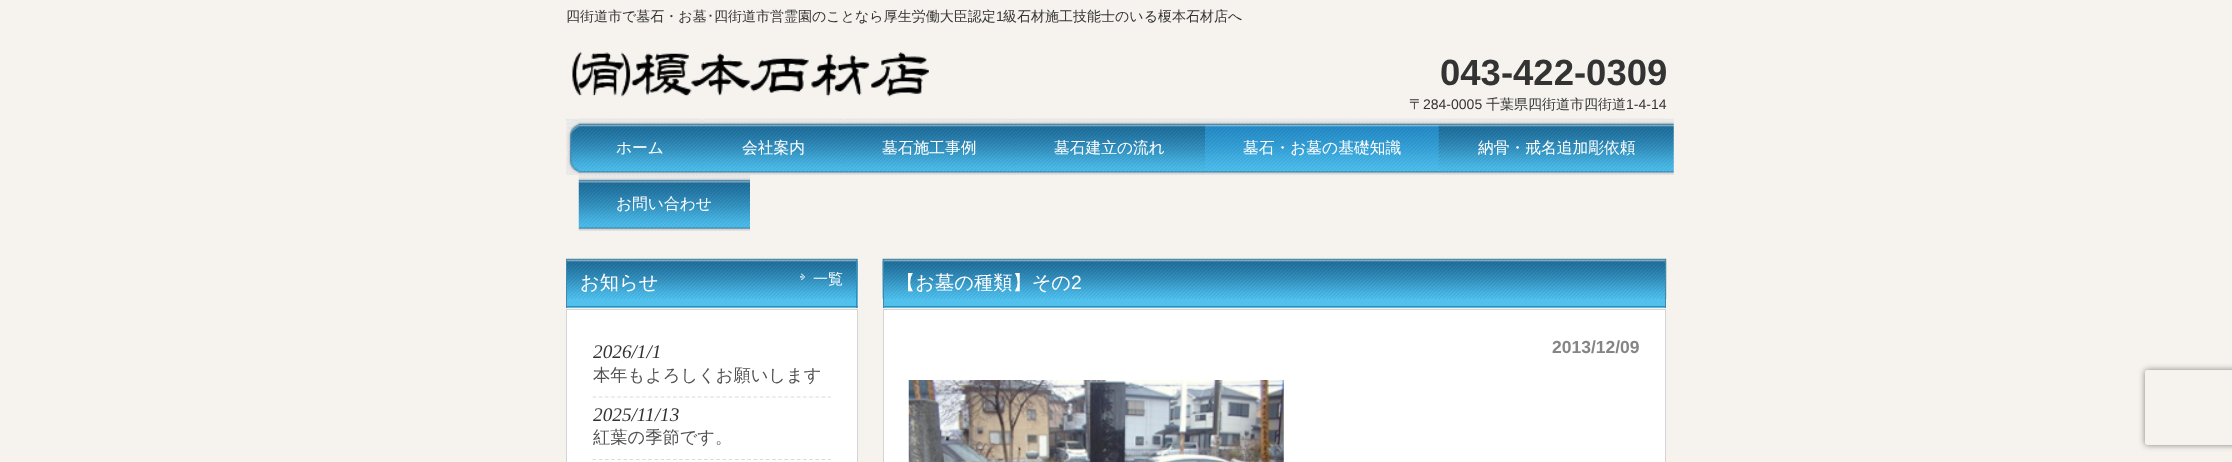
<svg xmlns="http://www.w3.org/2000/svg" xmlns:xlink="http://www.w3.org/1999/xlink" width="2232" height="462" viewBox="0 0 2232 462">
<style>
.cls-1{font:500 14px WenQuanYi Zen Hei;fill:#333333}
.cls-2{font:14px IPAPGothic;fill:#333333}
.cls-3{font:14px Liberation Sans;fill:#333333}
.cls-4{font:bold 36.5px Liberation Sans;fill:#333333}
.cls-5{font:500 15.75px WenQuanYi Zen Hei;fill:#ffffff}
.cls-6{font:500 19.25px WenQuanYi Zen Hei;fill:#ffffff}
.cls-7{font:500 15px WenQuanYi Zen Hei;fill:#ffffff}
.cls-8{font:italic 19.25px Liberation Serif;fill:#333333}
.cls-9{font:500 17.25px WenQuanYi Zen Hei;fill:#515151}
.cls-10{font:19.25px Liberation Sans;fill:#ffffff}
.cls-11{font:bold 17.5px Liberation Sans;fill:#858585}
</style>
<defs>
<clipPath id="clip1"><path d="M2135 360H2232V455H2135ZM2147.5 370H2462.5C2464 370 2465 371 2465 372.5V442.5C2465 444 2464 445 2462.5 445H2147.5C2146 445 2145 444 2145 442.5V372.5C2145 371 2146 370 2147.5 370Z" clip-rule="evenodd"/></clipPath>
</defs>
<rect width="100%" height="100%" fill="#f6f3ee"/>
<image xlink:href="image0.png" x="572" y="52" width="357" height="45"/>
<image xlink:href="image1.png" x="566" y="118" width="1101" height="57"/>
<image xlink:href="image2.png" x="578" y="118" width="123" height="57"/>
<image xlink:href="image3.png" x="704" y="118" width="139" height="57"/>
<image xlink:href="image4.png" x="845" y="118" width="169" height="57"/>
<image xlink:href="image5.png" x="1016" y="118" width="187" height="57"/>
<image xlink:href="image6.png" x="1205" y="118" width="234" height="57"/>
<image xlink:href="image7.png" x="1441" y="118" width="233" height="57"/>
<image xlink:href="image8.png" x="578" y="175" width="172" height="56"/>
<rect fill="#51c0ed" x="567" y="259" width="291" height="49"/>
<image xlink:href="image9.png" x="566" y="258" width="292" height="41"/>
<rect fill="#4488a8" x="856" y="259" width="1" height="49"/>
<rect fill="#4488a8" x="566" y="306" width="292" height="1"/>
<rect fill="#4488a8" x="566" y="259" width="1" height="49"/>
<image xlink:href="image10.png" x="800" y="273" width="5" height="7"/>
<rect fill="#ffffff" stroke="#d5d5d5" x="566.5" y="309.5" width="291" height="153"/>
<path fill="none" stroke="#dcdcdc" stroke-width="1.2" stroke-dasharray="3.75 2.44" d="M592.5 397H831"/>
<path fill="none" stroke="#dcdcdc" stroke-width="1.2" stroke-dasharray="3.75 2.44" d="M592.5 459.5H831"/>
<rect fill="#51c0ed" x="884" y="298" width="781" height="10"/>
<image xlink:href="image11.png" x="882" y="258" width="785" height="41"/>
<rect fill="#4488a8" x="1665" y="259" width="1" height="49"/>
<rect fill="#4488a8" x="883" y="306" width="783" height="1"/>
<rect fill="#4488a8" x="883" y="259" width="1" height="49"/>
<rect fill="#ffffff" stroke="#d5d5d5" x="883.5" y="309.5" width="782" height="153"/>
<image xlink:href="image12.png" x="908" y="380" width="376" height="82"/>
<g clip-path="url(#clip1)">
<rect fill="#808080" filter="blur(3px)" x="2145" y="370" width="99" height="75" rx="2.5"/>
</g>
<text class="cls-1" x="566" y="21">四街道市で墓石・お墓</text>
<text class="cls-2" x="707" y="21">･</text>
<text class="cls-1" x="714" y="21">四街道市営霊園のことなら厚生労働大臣認定</text>
<text class="cls-3" x="996" y="21">1</text>
<text class="cls-1" x="1003" y="21">級石材施工技能士のいる榎本石材店へ</text>
<text class="cls-4" x="1440" y="85">043-422-0309</text>
<text class="cls-1" x="1409" y="109">〒</text>
<text class="cls-3" x="1423" y="109">284-0005</text>
<text class="cls-1" x="1486" y="109">千葉県四街道市四街道</text>
<text class="cls-3" x="1626" y="109">1-4-14</text>
<text class="cls-5" x="616" y="153">ホーム</text>
<text class="cls-5" x="742" y="153">会社案内</text>
<text class="cls-5" x="882" y="153">墓石施工事例</text>
<text class="cls-5" x="1054" y="153">墓石建立の流れ</text>
<text class="cls-5" x="1243" y="153">墓石・お墓の基礎知識</text>
<text class="cls-5" x="1478" y="153">納骨・戒名追加彫依頼</text>
<text class="cls-5" x="616" y="209">お問い合わせ</text>
<text class="cls-6" x="580" y="289">お知らせ</text>
<text class="cls-7" x="813" y="284">一覧</text>
<text class="cls-8" x="593" y="358">2026/1/1</text>
<text class="cls-9" x="593" y="381">本年もよろしくお願いします</text>
<text class="cls-8" x="593" y="421">2025/11/13</text>
<text class="cls-9" x="593" y="443">紅葉の季節です。</text>
<text class="cls-6" x="896" y="289">【お墓の種類】その</text>
<text class="cls-10" x="1071" y="289">2</text>
<text class="cls-11" x="1552" y="353">2013/12/09</text>
</svg>
